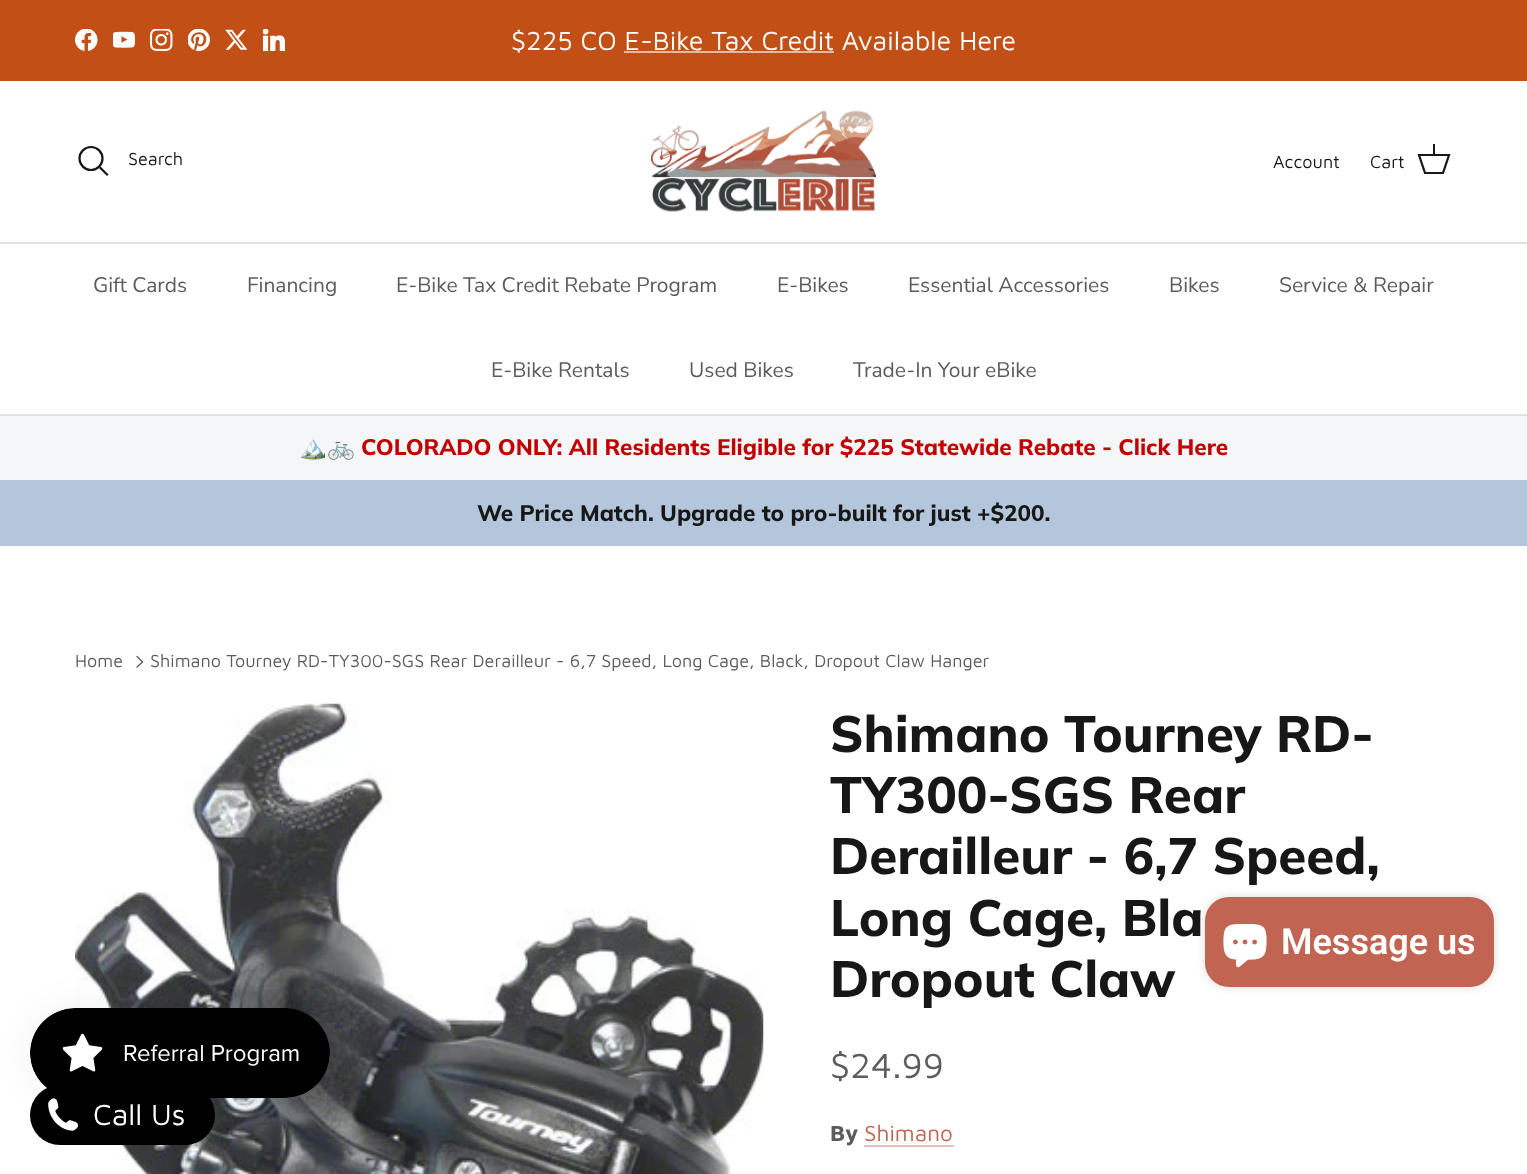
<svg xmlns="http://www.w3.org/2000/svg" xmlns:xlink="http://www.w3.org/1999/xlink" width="1527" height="1174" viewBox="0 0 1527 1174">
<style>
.cls-1{font:27px Maven Pro;fill:#ffffff}
.cls-2{font:18px Maven Pro;fill:#171717}
.cls-3{font:21px Nunito Sans;fill:#5c5c5c}
.cls-4{font:bold 22.5px Noto Color Emoji;fill:#c20000}
.cls-5{font:800 22.5px Muli;fill:#c20000}
.cls-6{font:800 22.5px Muli;fill:#171717}
.cls-7{font:18px Maven Pro;fill:#5c5c5c}
.cls-8{font:800 51px Muli;fill:#171717}
.cls-9{font:36px Maven Pro;fill:#5c5c5c}
.cls-10{font:bold 22.5px Maven Pro;fill:#5c5c5c}
.cls-11{font:22.5px Maven Pro;fill:#c16452}
.cls-12{font:600 36px Roboto;fill:#ffffff}
.cls-13{font:30px Maven Pro;fill:#ffffff}
</style>
<rect width="100%" height="100%" fill="#ffffff"/>
<rect fill="#c24f15" x="0" y="0" width="1527" height="81"/>
<image xlink:href="image0.png" x="75" y="29" width="23" height="22"/>
<image xlink:href="image1.png" x="113" y="31" width="22" height="17"/>
<image xlink:href="image2.png" x="150" y="29" width="23" height="22"/>
<image xlink:href="image3.png" x="188" y="29" width="22" height="22"/>
<image xlink:href="image4.png" x="225" y="29" width="23" height="21"/>
<image xlink:href="image5.png" x="263" y="29" width="22" height="22"/>
<rect fill="#dfe3e8" x="0" y="242" width="1527" height="2"/>
<circle fill="none" stroke="#171717" stroke-width="2.2" cx="91" cy="158.5" r="11.5"/>
<path fill="none" stroke="#171717" stroke-width="2.2" stroke-linecap="square" d="M100.5 168L107 174.5"/>
<image xlink:href="image6.png" x="651" y="110" width="225" height="102"/>
<path fill="none" stroke="#171717" stroke-width="2.2" d="M1419 155H1449L1443 173H1425Z"/>
<rect fill="#171717" x="1433" y="144" width="2" height="12"/>
<rect fill="#dfe3e8" x="0" y="414" width="1527" height="2"/>
<rect fill="#f4f6f8" x="0" y="416" width="1527" height="64"/>
<rect fill="#b4c6dc" x="0" y="480" width="1527" height="66"/>
<path fill="none" stroke="#5c5c5c" stroke-width="1.3" stroke-linecap="round" stroke-linejoin="round" d="M137 667L142.5 662L137 656.5"/>
<image xlink:href="image7.png" x="75" y="703" width="689" height="471"/>
<rect fill="#e6c1ba" x="864" y="1145" width="90" height="2"/>
<rect fill="#000000" fill-opacity="0.15" filter="blur(4px)" x="1205" y="897" width="289" height="90" rx="24"/>
<rect fill="#c16452" x="1205" y="897" width="289" height="90" rx="24"/>
<image xlink:href="image8.png" x="1223" y="924" width="44" height="44"/>
<rect fill="#000000" x="30" y="1085" width="185" height="60" rx="30"/>
<image xlink:href="image10.png" x="48" y="1098" width="31" height="33"/>
<rect fill="#000000" fill-opacity="0.05" filter="blur(19px)" x="30" y="1008" width="300" height="90" rx="45"/>
<image xlink:href="image9.png" x="30" y="1008" width="300" height="90"/>
<text class="cls-1" x="511" y="50">$225 CO E-Bike Tax Credit Available Here</text>
<rect fill="#e7b9a1" x="624" y="51" width="210" height="2"/>
<text class="cls-2" x="128" y="165">Search</text>
<text class="cls-2" x="1273" y="168">Account</text>
<text class="cls-2" x="1370" y="168">Cart</text>
<text class="cls-3" x="93" y="292">Gift Cards</text>
<text class="cls-3" x="247" y="292">Financing</text>
<text class="cls-3" x="396" y="292">E-Bike Tax Credit Rebate Program</text>
<text class="cls-3" x="777" y="292">E-Bikes</text>
<text class="cls-3" x="908" y="292">Essential Accessories</text>
<text class="cls-3" x="1169" y="292">Bikes</text>
<text class="cls-3" x="1279" y="292">Service &amp; Repair</text>
<text class="cls-3" x="491" y="377">E-Bike Rentals</text>
<text class="cls-3" x="689" y="377">Used Bikes</text>
<text class="cls-3" x="853" y="377">Trade-In Your eBike</text>
<text class="cls-4" x="299" y="455">🏔️🚲</text>
<text class="cls-5" x="361" y="455">COLORADO ONLY: All Residents Eligible for $225 Statewide Rebate - Click Here</text>
<text class="cls-6" x="477" y="521">We Price Match. Upgrade to pro-built for just +$200.</text>
<text class="cls-7" x="75" y="667">Home</text>
<text class="cls-7" x="150" y="667">Shimano Tourney RD-TY300-SGS Rear Derailleur - 6,7 Speed, Long Cage, Black, Dropout Claw Hanger</text>
<text class="cls-8"><tspan x="830" y="752">Shimano Tourney RD-</tspan><tspan x="830" y="813">TY300-SGS Rear</tspan><tspan x="830" y="874">Derailleur - 6,7 Speed,</tspan><tspan x="830" y="936">Long Cage, Bla</tspan><tspan x="830" y="997">Dropout Claw</tspan></text>
<text class="cls-9" x="830" y="1078">$24.99</text>
<text class="cls-10" x="830" y="1141">By</text>
<text class="cls-11" x="864" y="1141">Shimano</text>
<text class="cls-12" x="1281" y="954">Message us</text>
<text class="cls-13" x="93" y="1125">Call Us</text>
</svg>
